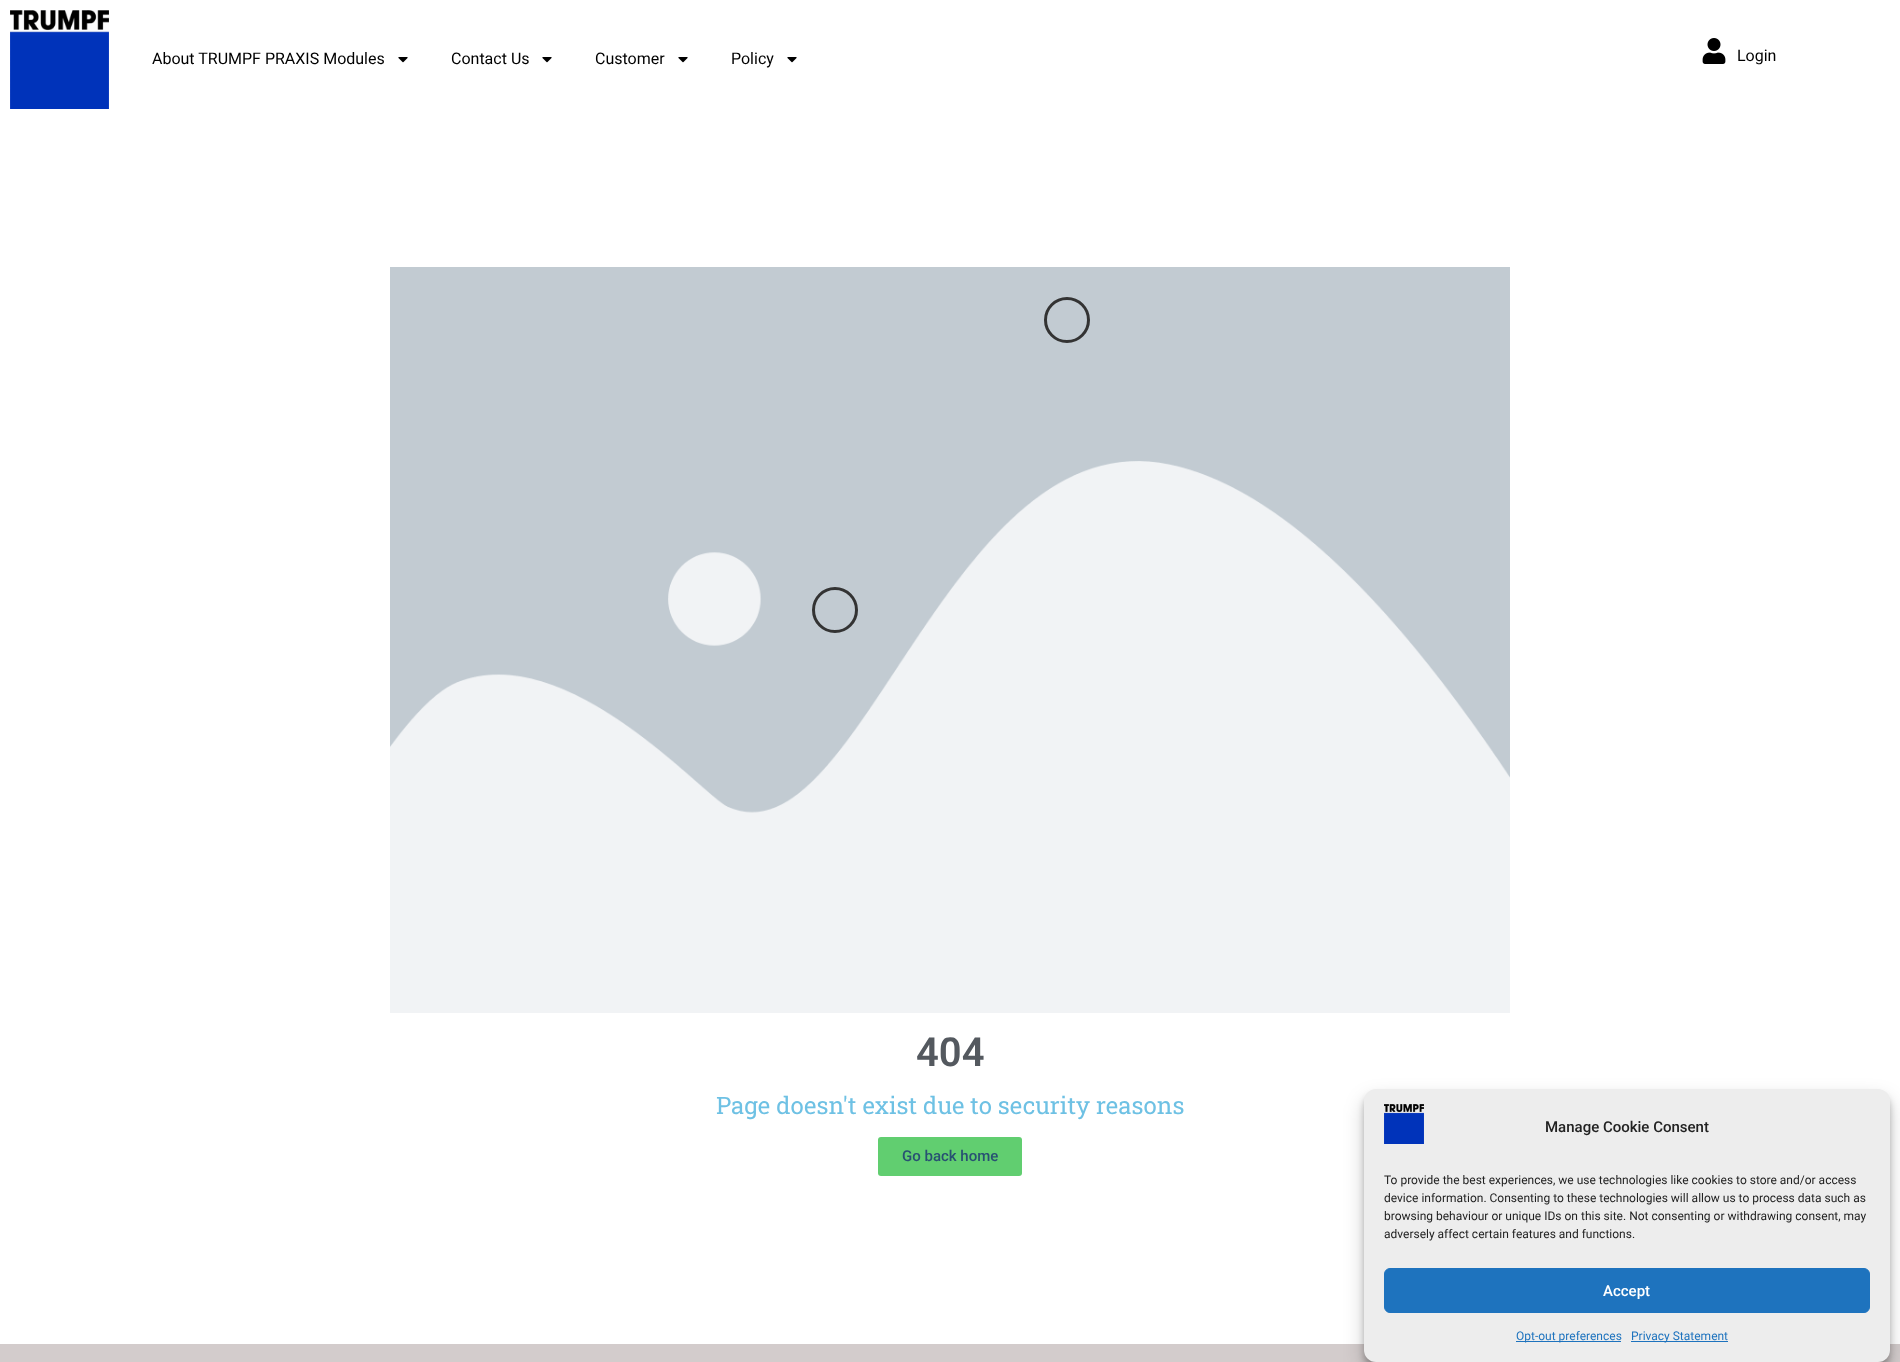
<svg xmlns="http://www.w3.org/2000/svg" xmlns:xlink="http://www.w3.org/1999/xlink" width="1900" height="1362" viewBox="0 0 1900 1362">
<style>
.cls-1{font:16px Roboto;fill:#000000}
.cls-2{font:600 40px Roboto;fill:#54595f}
.cls-3{font:24px Roboto Slab;fill:#6ec1e4}
.cls-4{font:500 15px Roboto;fill:#285172}
.cls-5{font:500 15px Roboto;fill:#222222}
.cls-6{font:12px Roboto;fill:#222222}
.cls-7{font:500 15px Roboto;fill:#ffffff}
.cls-8{font:12px Roboto;fill:#1e73be}
</style>
<rect width="100%" height="100%" fill="#ffffff"/>
<image xlink:href="image0.png" x="10" y="10" width="99" height="99"/>
<image xlink:href="image1.png" x="398" y="57" width="10" height="6"/>
<image xlink:href="image1.png" x="542" y="57" width="10" height="6"/>
<image xlink:href="image1.png" x="678" y="57" width="10" height="6"/>
<image xlink:href="image1.png" x="787" y="57" width="10" height="6"/>
<image xlink:href="image2.png" x="1702" y="38" width="24" height="26"/>
<image xlink:href="image3.png" x="390" y="267" width="1120" height="746"/>
<circle fill="none" stroke="#333333" stroke-width="3" cx="1067" cy="320" r="21.5"/>
<circle fill="none" stroke="#333333" stroke-width="3" cx="835" cy="610" r="21.5"/>
<rect fill="#61ce70" x="878" y="1137" width="144" height="39" rx="3"/>
<rect fill="#d3cccc" x="0" y="1344" width="1900" height="18"/>
<rect fill="#000000" fill-opacity="0.23" filter="blur(3px)" x="1364" y="1095" width="526" height="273" rx="12"/>
<rect fill="#000000" fill-opacity="0.19" filter="blur(10px)" x="1364" y="1099" width="526" height="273" rx="12"/>
<rect fill="#ededed" x="1364" y="1089" width="526" height="273" rx="12"/>
<image xlink:href="image4.png" x="1384" y="1104" width="40" height="40"/>
<rect fill="#1e73be" stroke="#1e73be" x="1384.5" y="1268.5" width="485" height="44" rx="5.5"/>
<rect fill="#1e73be" x="1516" y="1341" width="105" height="1"/>
<rect fill="#1e73be" x="1631" y="1341" width="97" height="1"/>
<text class="cls-1" x="152" y="64">About TRUMPF PRAXIS Modules</text>
<text class="cls-1" x="451" y="64">Contact Us</text>
<text class="cls-1" x="595" y="64">Customer</text>
<text class="cls-1" x="731" y="64">Policy</text>
<text class="cls-1" x="1737" y="61">Login</text>
<text class="cls-2" x="916" y="1066">404</text>
<text class="cls-3" x="716" y="1114">Page doesn't exist due to security reasons</text>
<text class="cls-4" x="902" y="1161">Go back home</text>
<text class="cls-5" x="1545" y="1132">Manage Cookie Consent</text>
<text class="cls-6"><tspan x="1384" y="1184">To provide the best experiences, we use technologies like cookies to store and/or access</tspan><tspan x="1384" y="1202">device information. Consenting to these technologies will allow us to process data such as</tspan><tspan x="1384" y="1220">browsing behaviour or unique IDs on this site. Not consenting or withdrawing consent, may</tspan><tspan x="1384" y="1238">adversely affect certain features and functions.</tspan></text>
<text class="cls-7" x="1603" y="1296">Accept</text>
<text class="cls-8" x="1516" y="1340">Opt-out preferences</text>
<text class="cls-8" x="1631" y="1340">Privacy Statement</text>
</svg>
